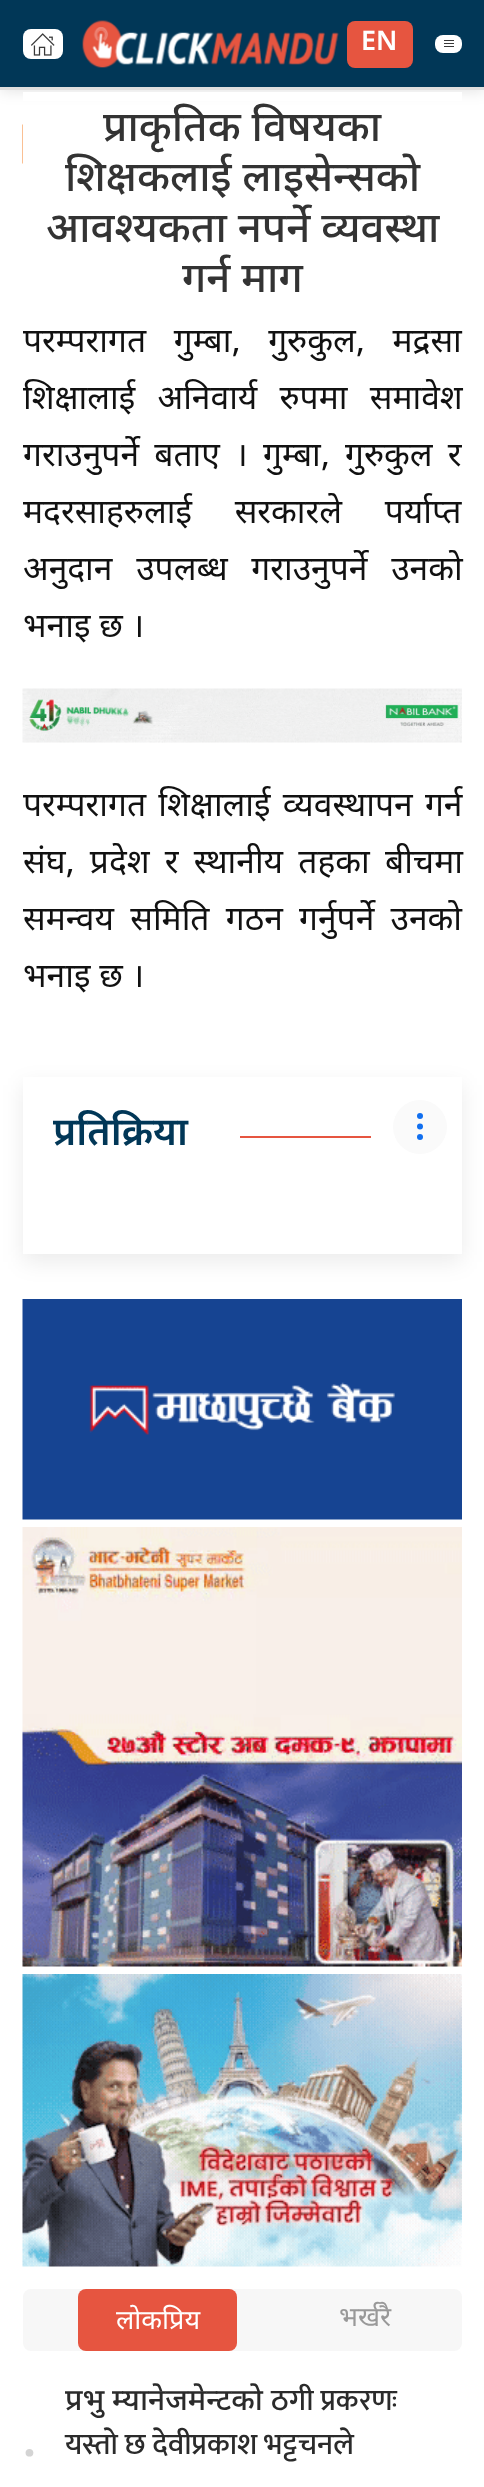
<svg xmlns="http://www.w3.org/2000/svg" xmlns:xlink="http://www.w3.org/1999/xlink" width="484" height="2487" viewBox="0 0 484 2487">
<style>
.cls-1{font:600 27px Noto Sans Devanagari;fill:#ffffff}
.cls-2{font:500 42px Noto Sans Devanagari;fill:#333333}
.cls-3{font:33.6px Noto Sans Devanagari;fill:#111111}
.cls-4{font:600 39px Noto Sans Devanagari;fill:#013757}
.cls-5{font:27px Noto Sans Devanagari;fill:#ffffff}
.cls-6{font:27px Noto Sans Devanagari;fill:#999999}
.cls-7{font:bold 45px Noto Sans Devanagari;fill:#d4d4d4}
.cls-8{font:500 30px Noto Sans Devanagari;fill:#2b2b2b}
.cls-9{font:500 30px Mukta;fill:#2b2b2b}
</style>
<defs>
<clipPath id="clip1"><path d="M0 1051H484V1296H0ZM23 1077H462V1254H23Z" clip-rule="evenodd"/></clipPath>
</defs>
<rect width="100%" height="100%" fill="#ffffff"/>
<rect fill="#000000" fill-opacity="0.13" filter="blur(7.5px)" x="0" y="0" width="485" height="90"/>
<rect fill="#013757" x="0" y="0" width="484" height="87"/>
<rect fill="#dfdfdf" x="0" y="87" width="484" height="3"/>
<rect fill="#ffffff" x="23" y="29" width="40" height="30" rx="8"/>
<image xlink:href="image0.png" x="31" y="33" width="24" height="23"/>
<image xlink:href="image1.png" x="82" y="20" width="257" height="48"/>
<rect fill="#e65540" x="347" y="21" width="66" height="47" rx="8"/>
<rect fill="#ffffff" x="435" y="35" width="27" height="18" rx="8"/>
<rect fill="#383838" x="444" y="40" width="10" height="1"/>
<rect fill="#383838" x="444" y="43" width="10" height="1"/>
<rect fill="#383838" x="444" y="46" width="10" height="1"/>
<rect fill="#ffffff" x="23" y="92" width="439" height="9"/>
<image xlink:href="image2.png" x="22" y="124" width="1" height="40"/>
<image xlink:href="image3.png" x="22" y="688" width="440" height="55"/>
<g clip-path="url(#clip1)">
<rect fill="#000000" fill-opacity="0.08" filter="blur(11px)" x="23" y="1085" width="439" height="177"/>
</g>
<rect fill="#e65540" x="240" y="1136" width="131" height="2"/>
<circle fill="#fafafa" cx="420" cy="1127" r="27"/>
<circle fill="#116fef" cx="420" cy="1116" r="3"/>
<circle fill="#116fef" cx="420" cy="1126.5" r="3"/>
<circle fill="#116fef" cx="420" cy="1137" r="3"/>
<image xlink:href="image4.png" x="22" y="1299" width="440" height="221"/>
<image xlink:href="image5.png" x="22" y="1527" width="440" height="440"/>
<image xlink:href="image6.png" x="22" y="1974" width="440" height="293"/>
<rect fill="#f7f7f7" x="23" y="2289" width="439" height="62" rx="8"/>
<rect fill="#e65540" x="78" y="2289" width="159" height="62" rx="8"/>
<text class="cls-1" x="361" y="50">EN</text>
<text class="cls-2" x="103" y="141">प्राकृतिक विषयका</text>
<text class="cls-2" x="65" y="191">शिक्षकलाई लाइसेन्सको</text>
<text class="cls-2" x="46" y="242">आवश्यकता नपर्ने व्यवस्था</text>
<text class="cls-2" x="182" y="292">गर्न माग</text>
<text class="cls-3"><tspan x="23" y="352" word-spacing="19">परम्परागत गुम्बा, गुरुकुल, मद्रसा</tspan><tspan x="23" y="409" word-spacing="13.5">शिक्षालाई अनिवार्य रुपमा समावेश</tspan><tspan x="23" y="466" word-spacing="6.5">गराउनुपर्ने बताए । गुम्बा, गुरुकुल र</tspan><tspan x="23" y="523" word-spacing="34">मदरसाहरुलाई सरकारले पर्याप्त</tspan><tspan x="23" y="580" word-spacing="15">अनुदान उपलब्ध गराउनुपर्ने उनको</tspan><tspan x="23" y="637">भनाइ छ ।</tspan></text>
<text class="cls-3"><tspan x="23" y="816" word-spacing="3.5">परम्परागत शिक्षालाई व्यवस्थापन गर्न</tspan><tspan x="23" y="873" word-spacing="6.5">संघ, प्रदेश र स्थानीय तहका बीचमा</tspan><tspan x="23" y="930" word-spacing="7.5">समन्वय समिति गठन गर्नुपर्ने उनको</tspan><tspan x="23" y="987">भनाइ छ ।</tspan></text>
<text class="cls-4" x="53" y="1145">प्रतिक्रिया</text>
<text class="cls-5" x="116" y="2329">लोकप्रिय</text>
<text class="cls-6" x="339" y="2326">भर्खरै</text>
<text class="cls-7" x="23" y="2456">.</text>
<text class="cls-8" x="65" y="2410">प्रभु म्यानेजमेन्टको</text>
<text class="cls-9" x="271" y="2410">ठगी प्रकरणः</text>
<text class="cls-9" x="65" y="2454">यस्तो छ देवीप्रकाश भट्टचनले</text>
</svg>
